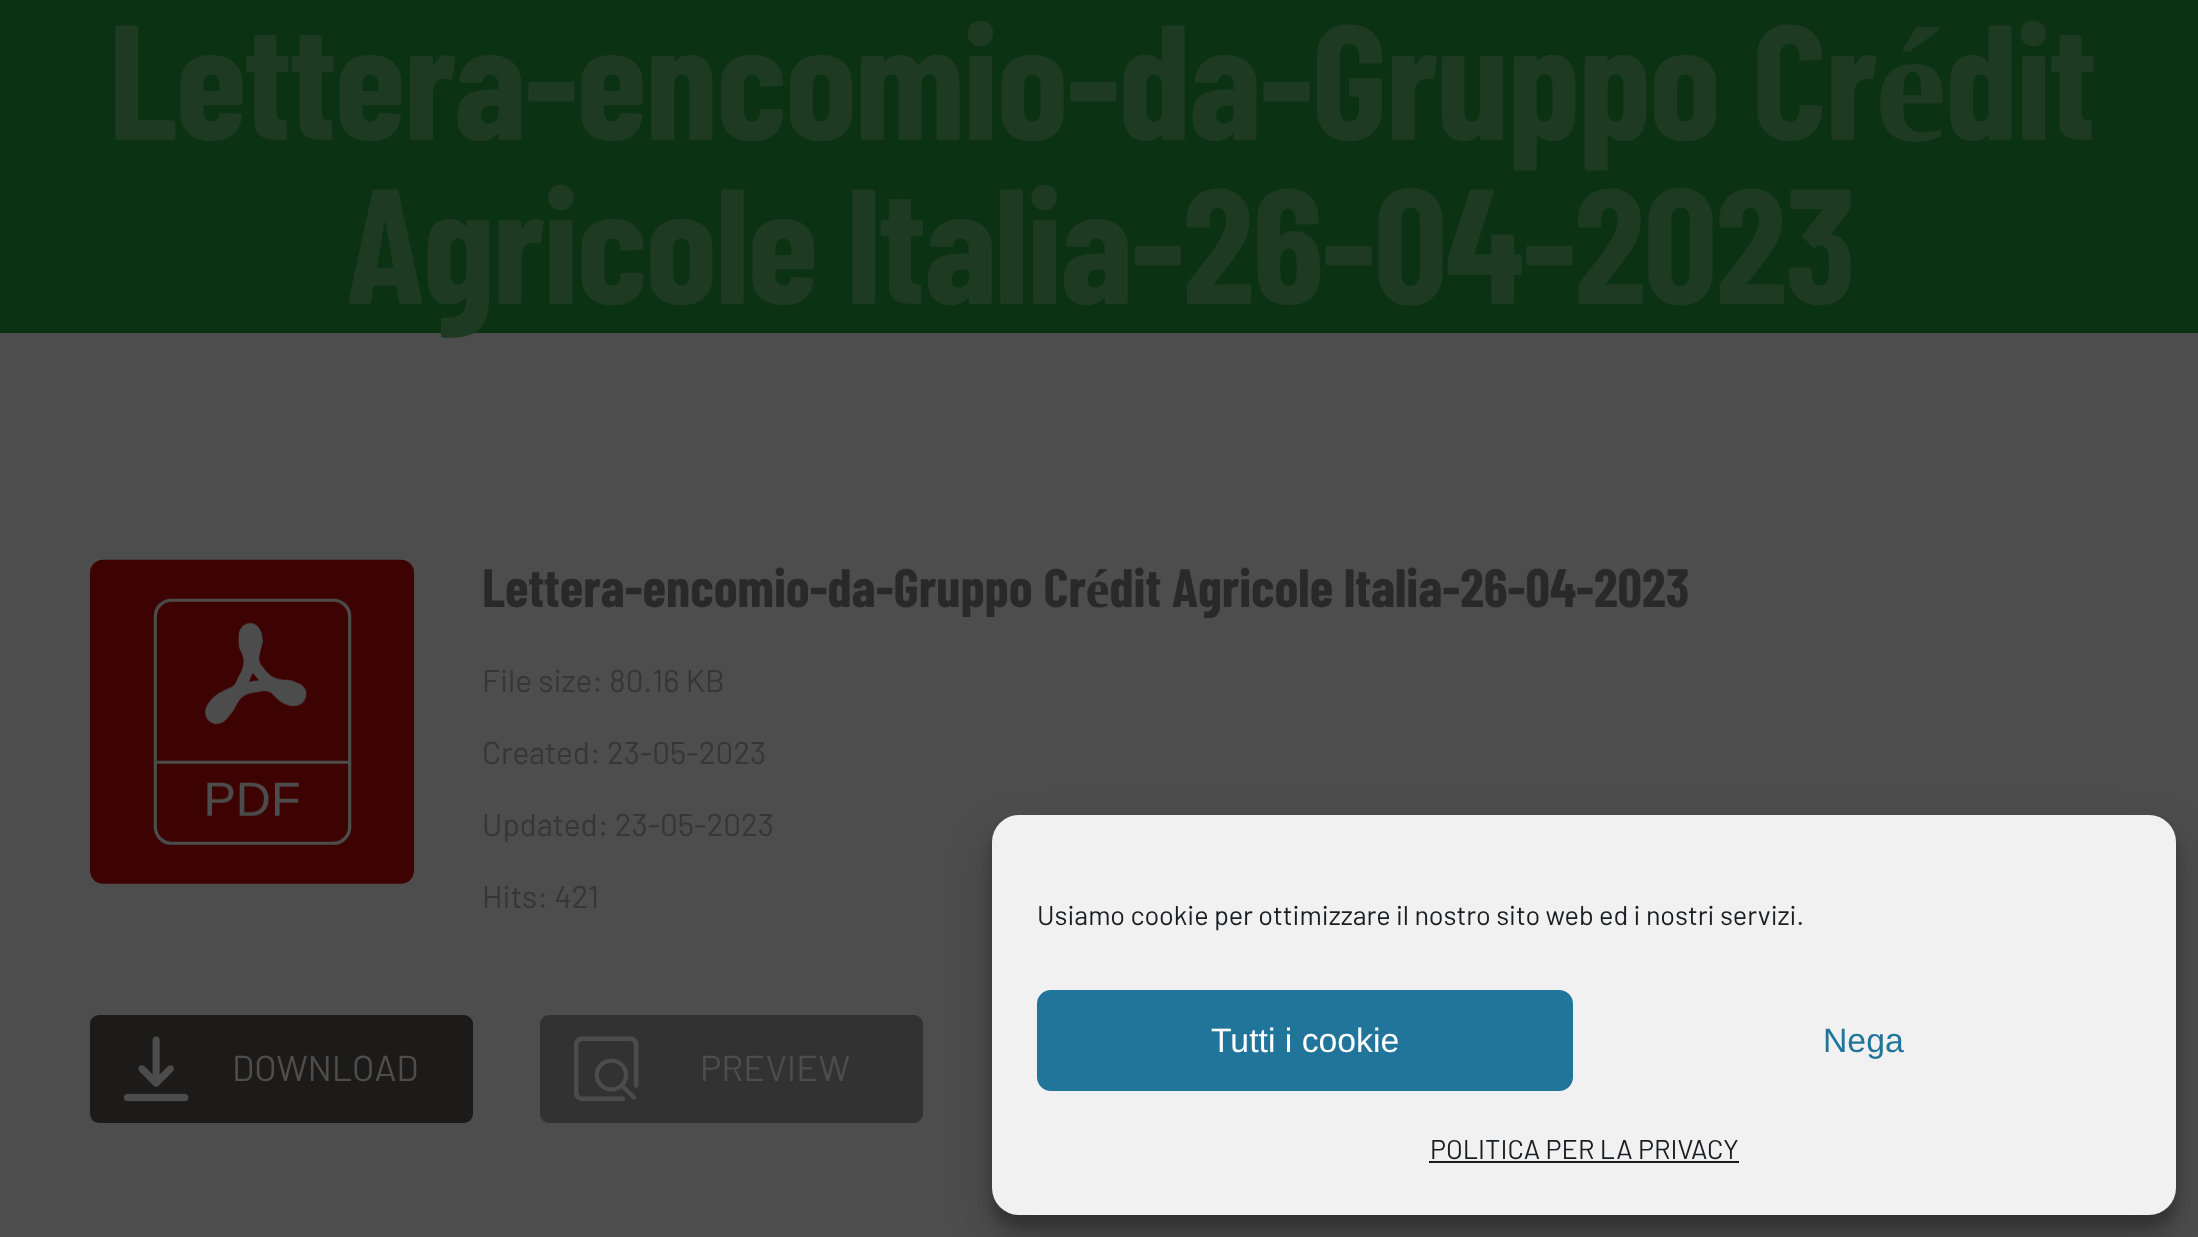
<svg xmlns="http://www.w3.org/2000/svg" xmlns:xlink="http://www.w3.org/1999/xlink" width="2198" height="1237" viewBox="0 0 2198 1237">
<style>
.cls-1{font:bold 163.5px Barlow Condensed;letter-spacing:-2.25px;fill:#1e3a23}
.cls-2{font:bold 54px Barlow Condensed;fill:#292929}
.cls-3{font:31.5px Barlow;fill:#363636}
.cls-4{font:36px Barlow;fill:#4d4d4d}
.cls-5{font:27px Barlow;fill:#191e23}
.cls-6{font:33.75px Liberation Sans;fill:#ffffff}
.cls-7{font:33.75px Liberation Sans;fill:#21759b}
</style>
<rect width="100%" height="100%" fill="#4d4d4d"/>
<rect fill="#0b3212" x="0" y="0" width="2198" height="333"/>
<image xlink:href="image0.png" x="90" y="559" width="324" height="325"/>
<rect fill="#1c1b1a" x="90" y="1015" width="383" height="108" rx="9"/>
<image xlink:href="image1.png" x="124" y="1036" width="65" height="66"/>
<rect fill="#323232" x="540" y="1015" width="383" height="108" rx="9"/>
<image xlink:href="image2.png" x="574" y="1036" width="65" height="66"/>
<rect fill="#000000" fill-opacity="0.23" filter="blur(7px)" x="992" y="828" width="1184" height="401" rx="27"/>
<rect fill="#000000" fill-opacity="0.19" filter="blur(22.5px)" x="992" y="837" width="1184" height="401" rx="27"/>
<rect fill="#f1f1f1" x="992" y="815" width="1184" height="400" rx="27"/>
<rect fill="#21759b" stroke="#21759b" stroke-width="2" x="1038" y="991" width="534" height="99" rx="13"/>
<rect fill="#191e23" x="1429" y="1161" width="310" height="2"/>
<text class="cls-1" x="108" y="140" word-spacing="2">Lettera-encomio-da-Gruppo Crédit</text>
<text class="cls-1" x="346" y="304">Agricole ltalia-26-04-2023</text>
<text class="cls-2" x="482" y="607">Lettera-encomio-da-Gruppo Crédit Agricole ltalia-26-04-2023</text>
<text class="cls-3" x="482" y="692">File size: 80.16 KB</text>
<text class="cls-3" x="482" y="764">Created: 23-05-2023</text>
<text class="cls-3" x="482" y="836">Updated: 23-05-2023</text>
<text class="cls-3" x="482" y="908">Hits: 421</text>
<text class="cls-4" x="232" y="1081">DOWNLOAD</text>
<text class="cls-4" x="700" y="1081">PREVIEW</text>
<text class="cls-5" x="1037" y="925">Usiamo cookie per ottimizzare il nostro sito web ed i nostri servizi.</text>
<text class="cls-6" x="1211" y="1052">Tutti i cookie</text>
<text class="cls-7" x="1823" y="1052">Nega</text>
<text class="cls-5" x="1430" y="1159">POLITICA PER LA PRIVACY</text>
</svg>
